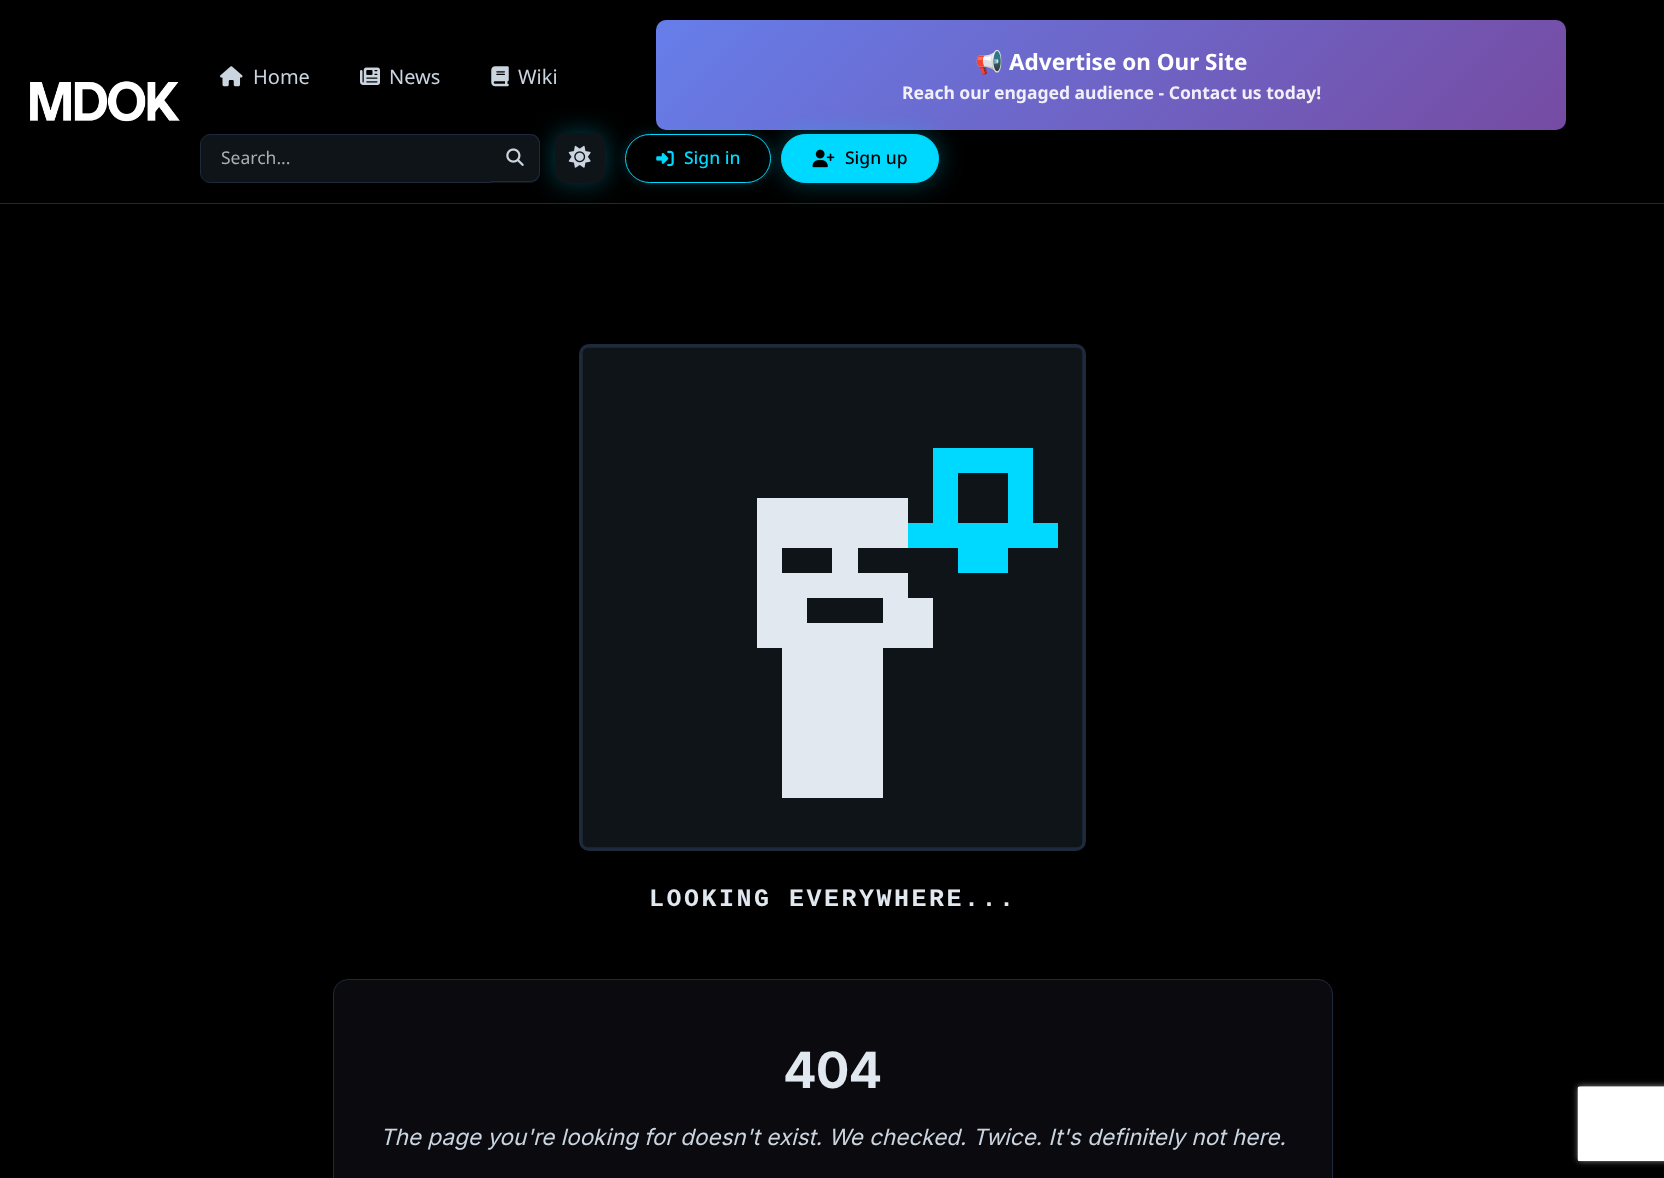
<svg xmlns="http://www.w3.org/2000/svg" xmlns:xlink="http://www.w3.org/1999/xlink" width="1664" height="1178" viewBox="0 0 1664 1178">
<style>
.cls-1{font:20px Noto Sans;fill:#cbd5e0}
.cls-2{font:bold 22.5px Noto Color Emoji;fill:#ffffff}
.cls-3{font:bold 22.5px Noto Sans;fill:#ffffff}
.cls-4{font:bold 17.5px Noto Sans;fill:#f1eff9}
.cls-5{font:17.5px Noto Sans;fill:#aaafb3}
.cls-6{font:500 17.5px Noto Sans;fill:#00d9ff}
.cls-7{font:500 17.5px Noto Sans;fill:#000000}
.cls-8{font:bold 25px Liberation Mono;letter-spacing:2.5px;fill:#e2e8f0}
.cls-9{font:bold 50px Inter;letter-spacing:-1px;fill:#e2e8f0}
.cls-10{font:italic 22.5px Inter;fill:#cbd5e0}
</style>
<defs>
<linearGradient id="g1" gradientUnits="userSpaceOnUse" x1="856" y1="-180" x2="1366" y2="330"><stop offset="0" stop-color="#667eea"/><stop offset="1" stop-color="#764ba2"/></linearGradient>
<clipPath id="clip1"><path d="M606 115H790V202H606ZM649.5 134H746.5C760 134 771 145 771 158.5C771 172 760 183 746.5 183H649.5C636 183 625 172 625 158.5C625 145 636 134 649.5 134Z" clip-rule="evenodd"/></clipPath>
</defs>
<rect width="100%" height="100%" fill="#000000"/>
<rect fill="#1e293b" x="0" y="203" width="1664" height="1"/>
<image xlink:href="image0.png" x="30" y="81" width="150" height="41"/>
<image xlink:href="image1.png" x="220" y="66" width="23" height="21"/>
<image xlink:href="image2.png" x="360" y="67" width="20" height="18"/>
<image xlink:href="image3.png" x="491" y="66" width="18" height="21"/>
<rect fill="url(#g1)" x="656" y="20" width="910" height="110" rx="10"/>
<path fill="#0f1419" stroke="#1e293b" d="M210 134.5H492.5V182.5H210C205 182.5 200.5 178 200.5 173V144C200.5 139 205 134.5 210 134.5Z"/>
<rect fill="#00d9ff" fill-opacity="0.3" filter="blur(12.5px)" x="555" y="133" width="50" height="50" rx="10"/>
<path fill="#0f1419" d="M491 134H530C535.5 134 540 138.5 540 144V173C540 178.5 535.5 183 530 183H491Z"/>
<path fill="#1e293b" fill-rule="evenodd" d="M491 134H530C536 134 540 138 540 144V172C540 178 536 182 530 182H491ZM491 135H530C535 135 539 139 539 144V172C539 177 535 181 530 181H491Z"/>
<image xlink:href="image4.png" x="506" y="148" width="18" height="18"/>
<rect fill="#0f1419" x="555" y="133" width="50" height="50" rx="10"/>
<image xlink:href="image5.png" x="568" y="145" width="23" height="23"/>
<g clip-path="url(#clip1)">
<rect fill="#00d9ff" fill-opacity="0.2" filter="blur(6px)" x="625" y="134" width="146" height="49" rx="24.5"/>
</g>
<rect fill="none" stroke="#00d9ff" x="625.5" y="134.5" width="145" height="48" rx="24"/>
<image xlink:href="image6.png" x="656" y="150" width="18" height="17"/>
<rect fill="#00d9ff" fill-opacity="0.3" filter="blur(12.5px)" x="781" y="134" width="158" height="49" rx="24.5"/>
<rect fill="#00d9ff" stroke="#00d9ff" x="781.5" y="134.5" width="157" height="48" rx="24"/>
<image xlink:href="image7.png" x="812" y="149" width="23" height="19"/>
<rect fill="none" stroke="#1e293b" stroke-width="4" x="581" y="346" width="503" height="503" rx="8"/>
<image xlink:href="image8.png" x="582" y="347" width="501" height="501"/>
<rect fill="#0a0a0f" stroke="#1e293b" x="333.5" y="979.5" width="999" height="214" rx="14.5"/>
<rect fill="#808080" filter="blur(3px)" x="1578" y="1086" width="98" height="75" rx="2.5"/>
<image xlink:href="image9.png" x="1577" y="1086" width="87" height="76"/>
<text class="cls-1" x="253" y="84">Home</text>
<text class="cls-1" x="389" y="84">News</text>
<text class="cls-1" x="518" y="84">Wiki</text>
<text class="cls-2" x="975" y="70">📢</text>
<text class="cls-3" x="1009" y="70">Advertise on Our Site</text>
<text class="cls-4" x="902" y="99">Reach our engaged audience - Contact us today!</text>
<text class="cls-5" x="221" y="164">Search...</text>
<text class="cls-6" x="684" y="164">Sign in</text>
<text class="cls-7" x="845" y="164">Sign up</text>
<text class="cls-8" x="649" y="906">LOOKING EVERYWHERE...</text>
<text class="cls-9" x="783" y="1088">404</text>
<text class="cls-10" x="380" y="1145">The page you're looking for doesn't exist. We checked. Twice. It's definitely not here.</text>
</svg>
